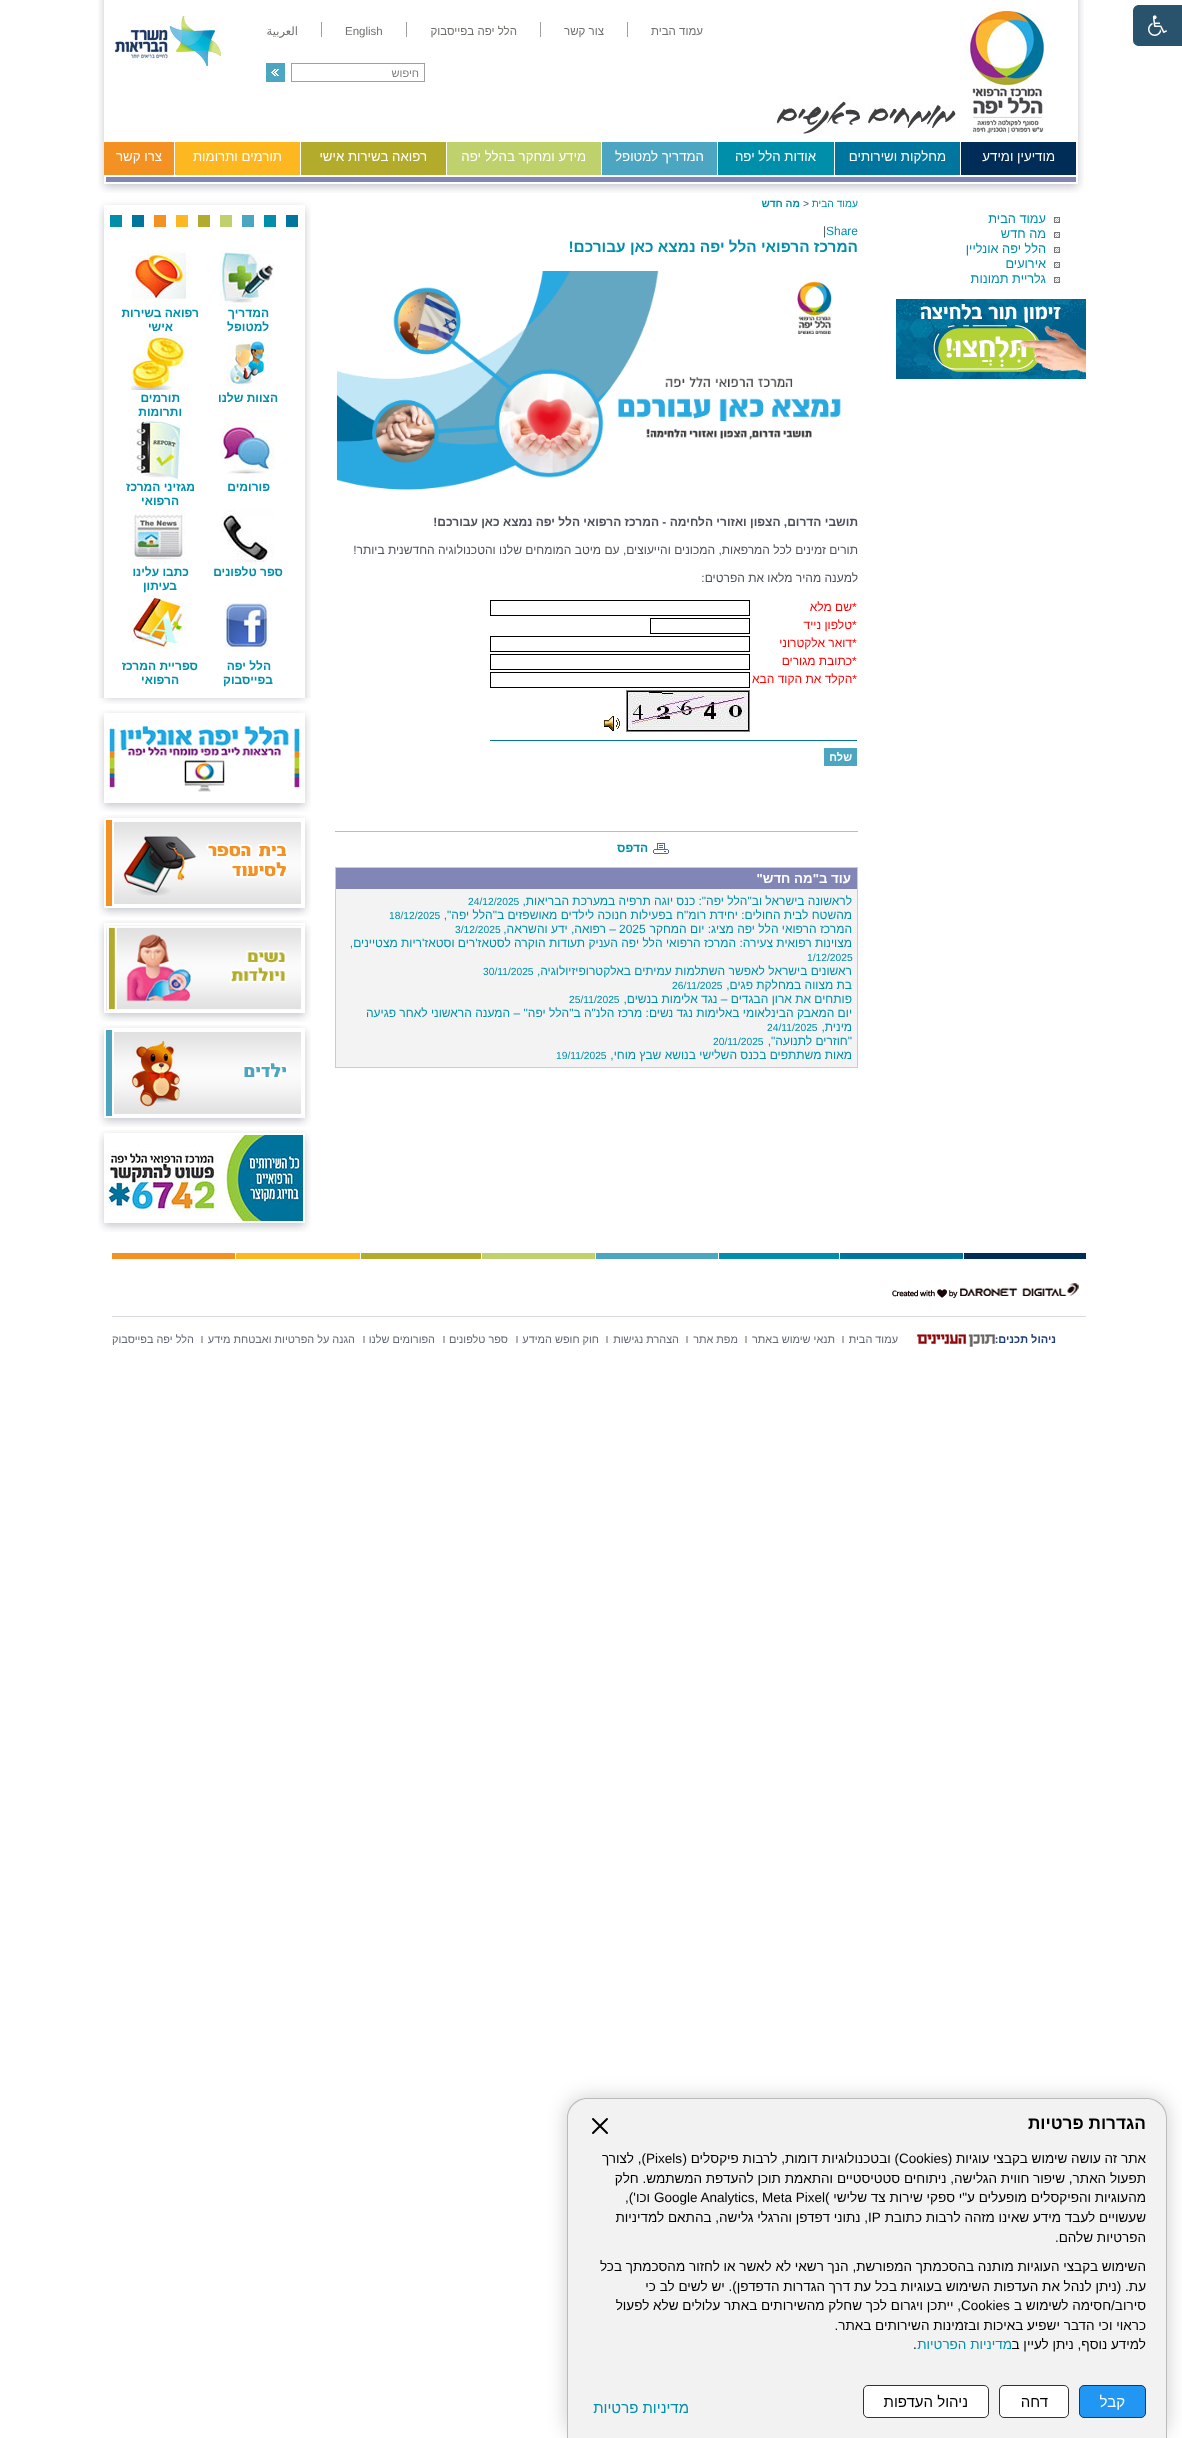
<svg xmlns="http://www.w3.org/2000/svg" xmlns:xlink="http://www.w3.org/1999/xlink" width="1182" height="2438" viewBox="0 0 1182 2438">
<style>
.cls-1{font:11.5px Liberation Sans;direction:rtl;fill:#71706c}
.cls-2{font:11.5px Liberation Sans;fill:#71706c}
.cls-3{font:11.5px DejaVu Sans;direction:rtl;fill:#71706c}
.cls-4{font:11px Liberation Sans;direction:rtl;fill:#7d7d7e}
.cls-5{font:13.25px Liberation Sans;direction:rtl;fill:#ffffff}
.cls-6{font:12.75px Liberation Sans;direction:rtl;fill:#008faa}
.cls-7{font:10.25px Liberation Sans;direction:rtl;fill:#008faa}
.cls-8{font:10.25px Liberation Sans;fill:#4d515b}
.cls-9{font:bold 10.25px Liberation Sans;direction:rtl;fill:#008faa}
.cls-10{font:12px Liberation Sans;fill:#008faa}
.cls-11{font:12px Liberation Sans;fill:#4d515b}
.cls-12{font:bold 15.4px Liberation Sans;direction:rtl;fill:#008faa}
.cls-13{font:bold 12px Liberation Sans;direction:rtl;fill:#4d515b}
.cls-14{font:12px Liberation Sans;direction:rtl;fill:#4d515b}
.cls-15{font:12px Liberation Sans;fill:#ff0000}
.cls-16{font:12px Liberation Sans;direction:rtl;fill:#ff0000}
.cls-17{font:bold 11px Liberation Sans;direction:rtl;fill:#ffffff}
.cls-18{font:bold 12px Liberation Sans;direction:rtl;fill:#008faa}
.cls-19{font:bold 13.25px Liberation Sans;direction:rtl;fill:#ffffff}
.cls-20{font:12px Liberation Sans;direction:rtl;fill:#008faa}
.cls-21{font:10.25px Liberation Sans;fill:#008faa}
.cls-22{font:bold 11px Liberation Sans;direction:rtl;fill:#1f3f7a}
.cls-23{font:10.9px Liberation Sans;direction:rtl;fill:#626875}
.cls-24{font:bold 17.25px Liberation Sans;direction:rtl;fill:#000000}
.cls-25{font:13.5px Liberation Sans;fill:#000000}
.cls-26{font:13.5px Liberation Sans;direction:rtl;fill:#000000}
.cls-27{font:13.5px Liberation Sans;direction:rtl;fill:#008faa}
.cls-28{font:15px Liberation Sans;direction:rtl;fill:#ffffff}
.cls-29{font:15px Liberation Sans;direction:rtl;fill:#000000}
.cls-30{font:15px Liberation Sans;direction:rtl;fill:#008faa}
</style>
<rect width="100%" height="100%" fill="#ffffff"/>
<path fill="#29536c" d="M1139 5H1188V46H1139C1135.5 46 1133 43.5 1133 40V11C1133 7.5 1135.5 5 1139 5Z"/>
<image xlink:href="image0.png" x="1148" y="15" width="19" height="21"/>
<image xlink:href="image1.png" x="98" y="0" width="986" height="193"/>
<image xlink:href="image2.png" x="772" y="8" width="272" height="128"/>
<rect fill="#a09f99" x="627" y="22" width="1" height="15"/>
<rect fill="#a09f99" x="540" y="22" width="1" height="15"/>
<rect fill="#a09f99" x="406" y="22" width="1" height="15"/>
<rect fill="#a09f99" x="321" y="22" width="1" height="15"/>
<rect fill="none" stroke="#a0a0a0" x="291.5" y="63.5" width="133" height="18"/>
<image xlink:href="image3.png" x="266" y="63" width="19" height="19"/>
<rect fill="#8286b6" x="106" y="177" width="970" height="5"/>
<rect fill="#002d57" x="961" y="142" width="115" height="33"/>
<rect fill="#00759e" x="835" y="142" width="125" height="33"/>
<rect fill="#008faa" x="718" y="142" width="116" height="33"/>
<rect fill="#4ca6c1" x="602" y="142" width="115" height="33"/>
<rect fill="#bed16d" x="447" y="142" width="154" height="33"/>
<rect fill="#b2ab2c" x="301" y="142" width="145" height="33"/>
<rect fill="#fdb721" x="175" y="142" width="125" height="33"/>
<rect fill="#f39122" x="104" y="142" width="70" height="33"/>
<image xlink:href="image4.png" x="1054" y="217" width="6" height="6"/>
<image xlink:href="image4.png" x="1054" y="232" width="6" height="6"/>
<image xlink:href="image4.png" x="1054" y="247" width="6" height="6"/>
<image xlink:href="image4.png" x="1054" y="262" width="6" height="6"/>
<image xlink:href="image4.png" x="1054" y="277" width="6" height="6"/>
<image xlink:href="image5.png" x="896" y="299" width="190" height="80"/>
<image xlink:href="image6.png" x="337" y="271" width="504" height="219"/>
<rect fill="none" stroke="#000000" x="490.5" y="600.5" width="259" height="15"/>
<rect fill="none" stroke="#000000" x="650.5" y="618.5" width="99" height="15"/>
<rect fill="none" stroke="#000000" x="490.5" y="636.5" width="259" height="15"/>
<rect fill="none" stroke="#000000" x="490.5" y="654.5" width="259" height="15"/>
<rect fill="none" stroke="#000000" x="490.5" y="672.5" width="259" height="15"/>
<rect fill="none" stroke="#808080" x="626.5" y="690.5" width="123" height="41"/>
<image xlink:href="image7.png" x="627" y="691" width="122" height="40"/>
<image xlink:href="image8.png" x="604" y="716" width="16" height="15"/>
<rect fill="#00759e" x="490" y="740" width="367" height="1"/>
<rect fill="#4ca6c1" x="824" y="748" width="33" height="18"/>
<rect fill="#bcbcbc" x="335" y="831" width="523" height="1"/>
<image xlink:href="image9.png" x="653" y="843" width="16" height="11"/>
<rect fill="none" stroke="#cccccc" x="335.5" y="867.5" width="522" height="200"/>
<rect fill="#8286b6" x="336" y="868" width="521" height="21"/>
<rect fill="#f3f3f3" x="336" y="889" width="521" height="178"/>
<image xlink:href="image10.png" x="98" y="698" width="213" height="6"/>
<image xlink:href="image11.png" x="98" y="198" width="213" height="500"/>
<image xlink:href="image12.png" x="219" y="250" width="55" height="55"/>
<image xlink:href="image13.png" x="131" y="250" width="55" height="55"/>
<image xlink:href="image14.png" x="227" y="341" width="38" height="45"/>
<image xlink:href="image15.png" x="131" y="335" width="55" height="55"/>
<image xlink:href="image16.png" x="219" y="420" width="55" height="55"/>
<image xlink:href="image17.png" x="130" y="420" width="56" height="59"/>
<image xlink:href="image18.png" x="219" y="509" width="55" height="55"/>
<image xlink:href="image19.png" x="131" y="509" width="55" height="55"/>
<image xlink:href="image20.png" x="224" y="600" width="47" height="52"/>
<image xlink:href="image21.png" x="131" y="594" width="55" height="55"/>
<image xlink:href="image22.png" x="98" y="710" width="213" height="102"/>
<image xlink:href="image23.png" x="109" y="726" width="192" height="66"/>
<image xlink:href="image22.png" x="98" y="815" width="213" height="102"/>
<image xlink:href="image24.png" x="106" y="820" width="195" height="86"/>
<image xlink:href="image22.png" x="98" y="920" width="213" height="102"/>
<image xlink:href="image25.png" x="106" y="925" width="197" height="86"/>
<image xlink:href="image22.png" x="98" y="1025" width="213" height="102"/>
<image xlink:href="image26.png" x="106" y="1030" width="195" height="86"/>
<image xlink:href="image22.png" x="98" y="1130" width="213" height="102"/>
<image xlink:href="image27.png" x="106" y="1135" width="197" height="86"/>
<image xlink:href="image28.png" x="112" y="1253" width="974" height="64"/>
<image xlink:href="image29.png" x="892" y="1283" width="187" height="15"/>
<image xlink:href="image30.png" x="916" y="1334" width="80" height="13"/>
<rect fill="#b3b3b3" x="842" y="1336" width="2" height="7"/>
<rect fill="#b3b3b3" x="745" y="1336" width="2" height="7"/>
<rect fill="#b3b3b3" x="686" y="1336" width="2" height="7"/>
<rect fill="#b3b3b3" x="606" y="1336" width="2" height="7"/>
<rect fill="#b3b3b3" x="516" y="1336" width="2" height="7"/>
<rect fill="#b3b3b3" x="443" y="1336" width="2" height="7"/>
<rect fill="#b3b3b3" x="363" y="1336" width="2" height="7"/>
<rect fill="#b3b3b3" x="201" y="1336" width="2" height="7"/>
<rect fill="#000000" fill-opacity="0.2" filter="blur(10px)" x="567" y="2098" width="600" height="340" rx="20"/>
<path fill="#f2f2f2" d="M587 2098H1147C1158 2098 1167 2107 1167 2118V2438H567V2118C567 2107 576 2098 587 2098Z"/>
<path fill="#bbbbbb" fill-rule="evenodd" d="M587 2098H1147C1158 2098 1167 2107 1167 2118V2438H567V2118C567 2107 576 2098 587 2098ZM587 2099H1147C1157 2099 1166 2108 1166 2118V2438H568V2118C568 2108 577 2099 587 2099Z"/>
<path fill="none" stroke="#000000" stroke-width="2" stroke-linecap="round" stroke-linejoin="round" d="M593 2119L607 2133M593 2133L607 2119"/>
<rect fill="#2196f3" stroke="#333333" x="1079.5" y="2385.5" width="66" height="32" rx="4.5"/>
<rect fill="#ffffff" stroke="#333333" x="999.5" y="2385.5" width="69" height="32" rx="4.5"/>
<rect fill="#ffffff" stroke="#333333" x="863.5" y="2385.5" width="125" height="32" rx="4.5"/>
<text class="cls-1" x="703" y="35">עמוד הבית</text>
<text class="cls-1" x="604" y="35">צור קשר</text>
<text class="cls-1" x="517" y="35">הלל יפה בפייסבוק</text>
<text class="cls-2" x="345" y="35">English</text>
<text class="cls-3" x="298" y="35">العربية</text>
<text class="cls-4" x="419" y="77">חיפוש</text>
<text class="cls-5" x="1055" y="161">מודיעין ומידע</text>
<text class="cls-5" x="946" y="161">מחלקות ושירותים</text>
<text class="cls-5" x="816" y="161">אודות הלל יפה</text>
<text class="cls-5" x="704" y="161">המדריך למטופל</text>
<text class="cls-5" x="586" y="161">מידע ומחקר בהלל יפה</text>
<text class="cls-5" x="427" y="161">רפואה בשירות אישי</text>
<text class="cls-5" x="282" y="161">תורמים ותרומות</text>
<text class="cls-5" x="162" y="161">צרו קשר</text>
<text class="cls-6"><tspan x="1046" y="223">עמוד הבית</tspan><tspan x="1046" y="238">מה חדש</tspan><tspan x="1046" y="253">הלל יפה אונליין</tspan><tspan x="1046" y="268">אירועים</tspan><tspan x="1046" y="283">גלריית תמונות</tspan></text>
<text class="cls-7" x="858" y="207">עמוד הבית</text>
<text class="cls-8" x="803" y="207">&gt;</text>
<text class="cls-9" x="800" y="207">מה חדש</text>
<text class="cls-10" x="826" y="235">Share</text>
<text class="cls-11" x="823" y="235">|</text>
<text class="cls-12" x="858" y="252">המרכז הרפואי הלל יפה נמצא כאן עבורכם!</text>
<text class="cls-13" x="858" y="526">תושבי הדרום, הצפון ואזורי הלחימה - המרכז הרפואי הלל יפה נמצא כאן עבורכם!</text>
<text class="cls-14" x="858" y="554">תורים זמינים לכל המרפאות, המכונים והייעוצים, עם מיטב המומחים שלנו והטכנולוגיה החדשנית ביותר!</text>
<text class="cls-14" x="858" y="582">למענה מהיר מלאו את הפרטים:</text>
<text class="cls-15" x="852" y="611">*</text>
<text class="cls-16" x="852" y="611">שם מלא</text>
<text class="cls-15" x="852" y="629">*</text>
<text class="cls-16" x="852" y="629">טלפון נייד</text>
<text class="cls-15" x="852" y="647">*</text>
<text class="cls-16" x="852" y="647">דואר אלקטרוני</text>
<text class="cls-15" x="852" y="665">*</text>
<text class="cls-16" x="852" y="665">כתובת מגורים</text>
<text class="cls-16" x="857" y="683">*הקלד את הקוד הבא</text>
<text class="cls-17" x="852" y="761">שלח</text>
<text class="cls-18" x="648" y="852">הדפס</text>
<text class="cls-19" x="851" y="883">עוד ב"מה חדש"</text>
<text class="cls-20" x="852" y="905">לראשונה בישראל וב"הלל יפה": כנס יוגה תרפיה במערכת הבריאות,</text>
<text class="cls-21" x="468" y="905">24/12/2025</text>
<text class="cls-20" x="852" y="919">מהשטח לבית החולים: יחידת רומ"ח בפעילות חנוכה לילדים מאושפזים ב"הלל יפה",</text>
<text class="cls-21" x="389" y="919">18/12/2025</text>
<text class="cls-20" x="852" y="933">המרכז הרפואי הלל יפה מציג: יום המחקר</text>
<text class="cls-10" x="619" y="933">2025</text>
<text class="cls-20" x="616" y="933">– רפואה, ידע והשראה,</text>
<text class="cls-21" x="455" y="933">3/12/2025</text>
<text class="cls-20" x="852" y="947">מצוינות רפואית צעירה: המרכז הרפואי הלל יפה העניק תעודות הוקרה לסטאז'רים וסטאז'ריות מצטיינים,</text>
<text class="cls-21" x="807" y="961">1/12/2025</text>
<text class="cls-20" x="852" y="975">ראשונים בישראל לאפשר השתלמות עמיתים באלקטרופיזיולוגיה,</text>
<text class="cls-21" x="483" y="975">30/11/2025</text>
<text class="cls-20" x="852" y="989">בת מצווה במחלקת פגים,</text>
<text class="cls-21" x="672" y="989">26/11/2025</text>
<text class="cls-20" x="852" y="1003">פותחים את ארון הבגדים – נגד אלימות בנשים,</text>
<text class="cls-21" x="569" y="1003">25/11/2025</text>
<text class="cls-20"><tspan x="852" y="1017">יום המאבק הבינלאומי באלימות נגד נשים: מרכז הלנ"ה ב"הלל יפה" – המענה הראשוני לאחר פגיעה</tspan><tspan x="852" y="1031">מינית,</tspan></text>
<text class="cls-21" x="767" y="1031">24/11/2025</text>
<text class="cls-20" x="852" y="1045">"חוזרים לתנועה",</text>
<text class="cls-21" x="713" y="1045">20/11/2025</text>
<text class="cls-20" x="852" y="1059">מאות משתתפים בכנס השלישי בנושא שבץ מוחי,</text>
<text class="cls-21" x="556" y="1059">19/11/2025</text>
<text class="cls-18"><tspan x="269" y="317">המדריך</tspan><tspan x="269" y="331">למטופל</tspan></text>
<text class="cls-18" x="199" y="317">רפואה בשירות</text>
<text class="cls-18" x="173" y="331">אישי</text>
<text class="cls-18" x="278" y="402">הצוות שלנו</text>
<text class="cls-18" x="180" y="402">תורמים</text>
<text class="cls-18" x="182" y="416">ותרומות</text>
<text class="cls-18" x="270" y="491">פורומים</text>
<text class="cls-18" x="195" y="491">מגזיני המרכז</text>
<text class="cls-18" x="179" y="505">הרפואי</text>
<text class="cls-18" x="283" y="576">ספר טלפונים</text>
<text class="cls-18" x="189" y="576">כתבו עלינו</text>
<text class="cls-18" x="177" y="590">בעיתון</text>
<text class="cls-18" x="271" y="670">הלל יפה</text>
<text class="cls-18" x="273" y="684">בפייסבוק</text>
<text class="cls-18" x="198" y="670">ספריית המרכז</text>
<text class="cls-18" x="179" y="684">הרפואי</text>
<text class="cls-22" x="1056" y="1343">ניהול תכנים:</text>
<text class="cls-23" x="898" y="1343">עמוד הבית</text>
<text class="cls-23" x="835" y="1343">תנאי שימוש באתר</text>
<text class="cls-23" x="738" y="1343">מפת אתר</text>
<text class="cls-23" x="679" y="1343">הצהרת נגישות</text>
<text class="cls-23" x="599" y="1343">חוק חופש המידע</text>
<text class="cls-23" x="508" y="1343">ספר טלפונים</text>
<text class="cls-23" x="435" y="1343">הפורומים שלנו</text>
<text class="cls-23" x="355" y="1343">הגנה על הפרטיות ואבטחת מידע</text>
<text class="cls-23" x="194" y="1343">הלל יפה בפייסבוק</text>
<text class="cls-24" x="1146" y="2129">הגדרות פרטיות</text>
<text class="cls-25" x="899" y="2163">Cookies</text>
<text class="cls-26" x="1146" y="2163">אתר זה עושה שימוש בקבצי עוגיות (</text>
<text class="cls-26" x="899" y="2163">) ובטכנולוגיות דומות, לרבות פיקסלים (</text>
<text class="cls-25" x="646" y="2163">Pixels</text>
<text class="cls-26" x="646" y="2163">), לצורך</text>
<text class="cls-26"><tspan x="1146" y="2183">תפעול האתר, שיפור חווית הגלישה, ניתוחים סטטיסטיים והתאמת תוכן להעדפת המשתמש. חלק</tspan><tspan x="1146" y="2202">מהעוגיות והפיקסלים מופעלים ע"י ספקי שירות צד שלישי</tspan></text>
<text class="cls-25" x="654" y="2202">Google Analytics, Meta Pixel(</text>
<text class="cls-26" x="650" y="2202">וכו'),</text>
<text class="cls-26" x="1146" y="2222">שעשויים לעבד מידע שאינו מזהה לרבות כתובת</text>
<text class="cls-25" x="868" y="2222">IP</text>
<text class="cls-26" x="868" y="2222">, נתוני דפדפן והרגלי גלישה, בהתאם למדיניות</text>
<text class="cls-26" x="1146" y="2242">הפרטיות שלהם.</text>
<text class="cls-26"><tspan x="1146" y="2271">השימוש בקבצי העוגיות מותנה בהסכמתך המפורשת, הנך רשאי לא לאשר או לחזור מהסכמתך בכל</tspan><tspan x="1146" y="2291">עת. (ניתן לנהל את העדפות השימוש בעוגיות בכל עת דרך הגדרות הדפדפן). יש לשים לב כי</tspan><tspan x="1146" y="2310">סירוב/חסימה לשימוש ב</tspan></text>
<text class="cls-25" x="961" y="2310">Cookies</text>
<text class="cls-26" x="961" y="2310">, ייתכן ויגרום לכך שחלק מהשירותים באתר עלולים שלא לפעול</text>
<text class="cls-26"><tspan x="1146" y="2330">כראוי וכי הדבר ישפיע באיכות ובזמינות השירותים באתר.</tspan><tspan x="1146" y="2349">למידע נוסף, ניתן לעיין ב</tspan></text>
<text class="cls-27" x="1012" y="2349">מדיניות הפרטיות</text>
<text class="cls-25" x="913" y="2349">.</text>
<text class="cls-28" x="1125" y="2407">קבל</text>
<text class="cls-29" x="1048" y="2407">דחה</text>
<text class="cls-29" x="968" y="2407">ניהול העדפות</text>
<text class="cls-30" x="689" y="2413">מדיניות פרטיות</text>
</svg>
